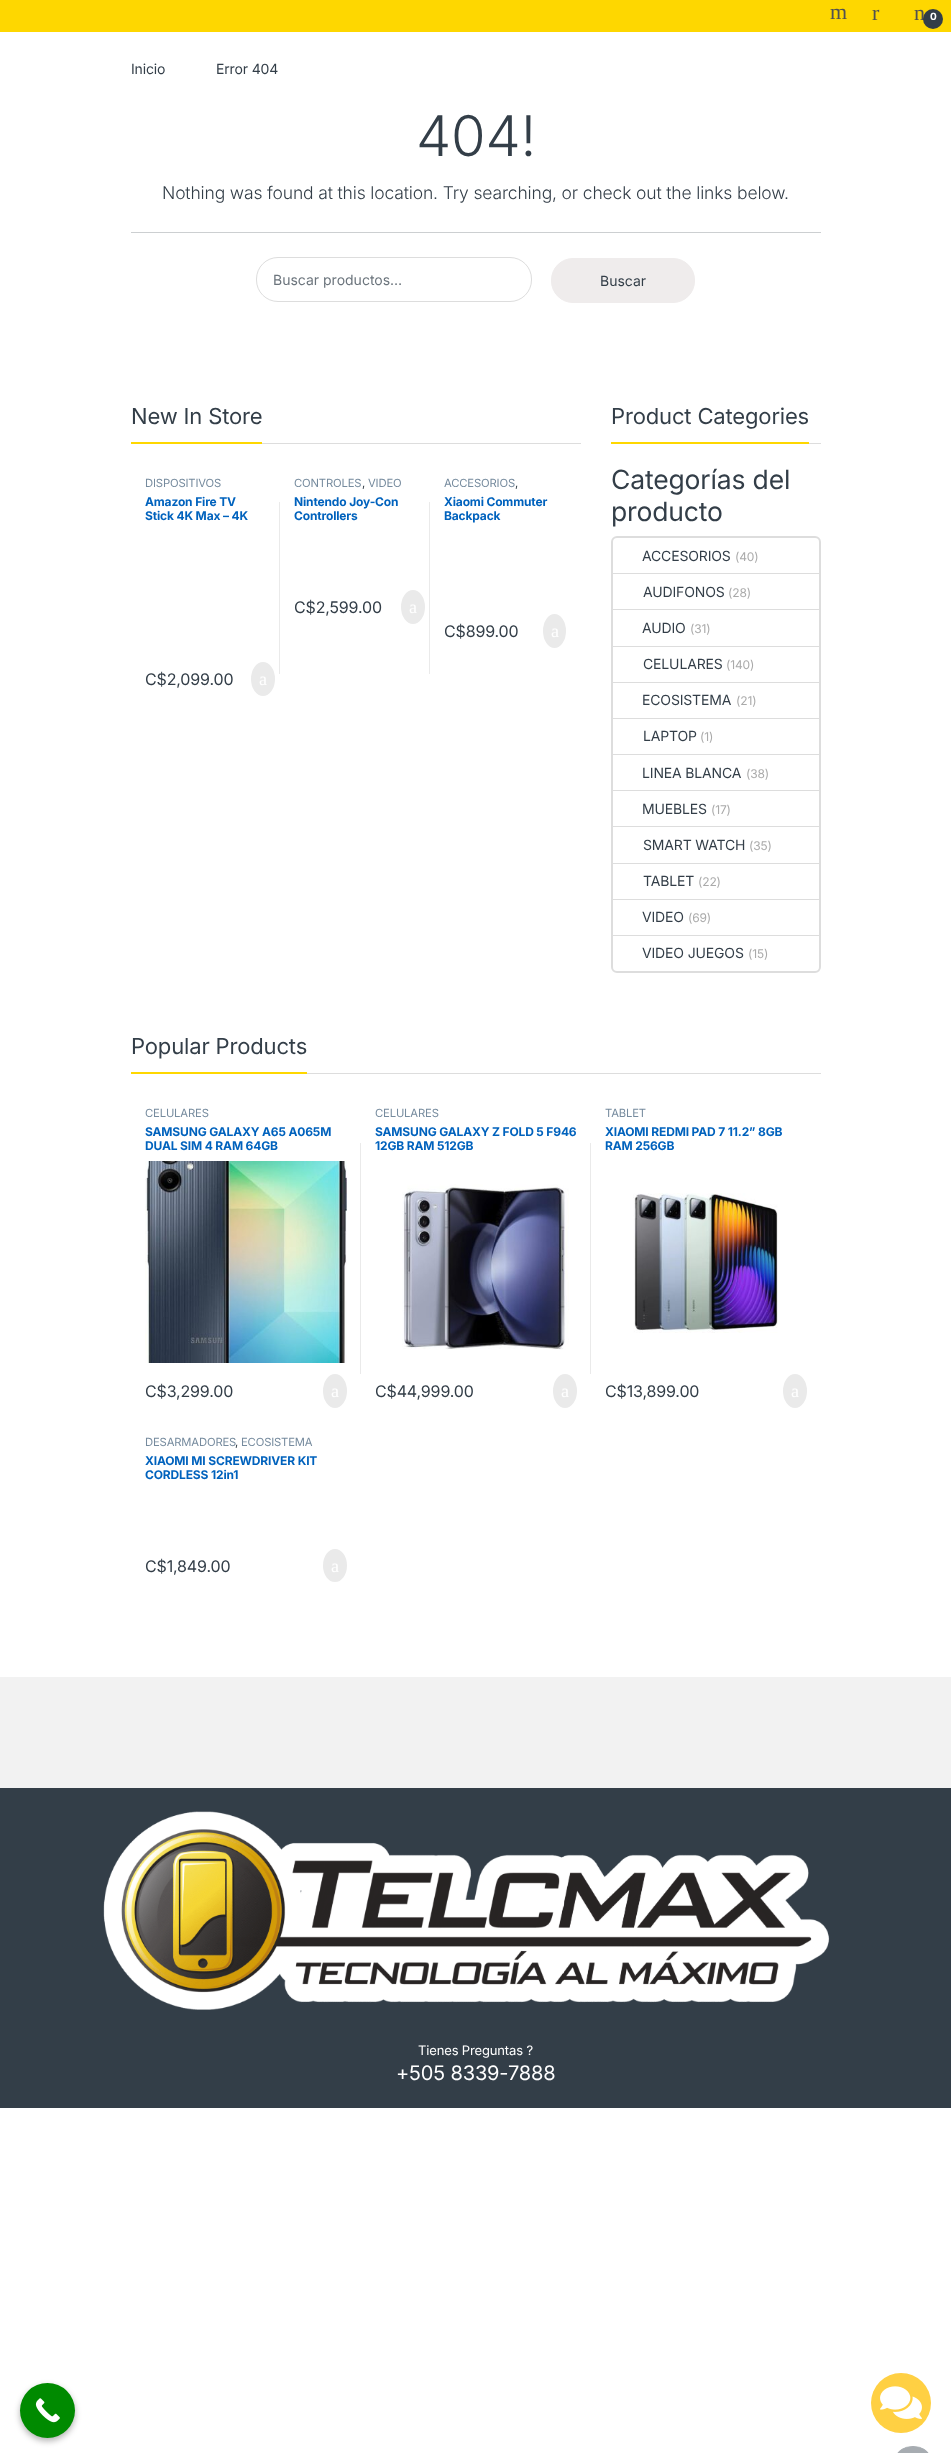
<svg xmlns="http://www.w3.org/2000/svg" xmlns:xlink="http://www.w3.org/1999/xlink" width="951" height="2453" viewBox="0 0 951 2453">
<style>
.cls-1{font:22px Liberation Serif;letter-spacing:-0.15px;fill:#515151}
.cls-2{font:bold 10px Inter;letter-spacing:-0.15px;fill:#ffffff}
.cls-3{font:14px Inter;letter-spacing:-0.15px;fill:#333e48}
.cls-4{font:300 56px Inter;letter-spacing:-0.15px;fill:#333e48}
.cls-5{font:300 17.5px Inter;letter-spacing:-0.15px;fill:#333e48}
.cls-6{font:14px Inter;fill:#6c757d}
.cls-7{font:14px Inter;fill:#333e48}
.cls-8{font:22px Inter;letter-spacing:-0.15px;fill:#333e48}
.cls-9{font:11.25px Inter;letter-spacing:-0.15px;fill:#768b9e}
.cls-10{font:bold 12px Inter;letter-spacing:-0.15px;fill:#0062bd}
.cls-11{font:16px Inter;letter-spacing:-0.15px;fill:#333e48}
.cls-12{font:18px Liberation Serif;letter-spacing:-0.15px;fill:#ffffff}
.cls-13{font:11.25px Inter;letter-spacing:-0.15px;fill:#333e48}
.cls-14{font:26.5px Inter;letter-spacing:-0.15px;fill:#333e48}
.cls-15{font:12px Inter;letter-spacing:-0.15px;fill:#aaaaaa}
.cls-16{font:13px Inter;letter-spacing:-0.15px;fill:#ffffff}
.cls-17{font:20px Inter;letter-spacing:-0.15px;fill:#ffffff}
</style>
<rect width="100%" height="100%" fill="#ffffff"/>
<rect fill="#fed700" x="0" y="0" width="951" height="32"/>
<rect fill="#cccfd1" x="131" y="232" width="690" height="1"/>
<rect fill="none" stroke="#dddddd" x="256.5" y="257.5" width="275" height="44" rx="21.5"/>
<rect fill="#efecec" stroke="#efecec" x="551.5" y="258.5" width="143" height="44" rx="21.5"/>
<rect fill="#dddddd" x="262" y="443" width="319" height="1"/>
<rect fill="#fed700" x="131" y="442" width="131" height="2"/>
<ellipse fill="#eaeaea" cx="263" cy="679" rx="12" ry="17"/>
<rect fill="#eaeaea" x="279" y="502" width="1" height="172"/>
<ellipse fill="#eaeaea" cx="413" cy="607" rx="12" ry="17"/>
<rect fill="#eaeaea" x="429" y="502" width="1" height="172"/>
<ellipse fill="#eaeaea" cx="554.5" cy="631" rx="11.5" ry="17"/>
<rect fill="#dddddd" x="809" y="443" width="12" height="1"/>
<rect fill="#fed700" x="611" y="442" width="198" height="2"/>
<rect fill="none" stroke="#dddddd" stroke-width="2" x="612" y="537" width="208" height="435" rx="5"/>
<rect fill="#dddddd" x="613" y="573" width="206" height="1"/>
<rect fill="#dddddd" x="613" y="609" width="206" height="1"/>
<rect fill="#dddddd" x="613" y="646" width="206" height="1"/>
<rect fill="#dddddd" x="613" y="682" width="206" height="1"/>
<rect fill="#dddddd" x="613" y="718" width="206" height="1"/>
<rect fill="#dddddd" x="613" y="754" width="206" height="1"/>
<rect fill="#dddddd" x="613" y="790" width="206" height="1"/>
<rect fill="#dddddd" x="613" y="826" width="206" height="1"/>
<rect fill="#dddddd" x="613" y="863" width="206" height="1"/>
<rect fill="#dddddd" x="613" y="899" width="206" height="1"/>
<rect fill="#dddddd" x="613" y="935" width="206" height="1"/>
<rect fill="#dddddd" x="307" y="1073" width="514" height="1"/>
<rect fill="#fed700" x="131" y="1072" width="176" height="2"/>
<image xlink:href="image0.png" x="145" y="1161" width="202" height="202"/>
<ellipse fill="#eaeaea" cx="335" cy="1391" rx="12" ry="17"/>
<rect fill="#eaeaea" x="360" y="1143" width="1" height="231"/>
<image xlink:href="image1.png" x="402" y="1184" width="167" height="166"/>
<ellipse fill="#eaeaea" cx="565" cy="1391" rx="12" ry="17"/>
<rect fill="#eaeaea" x="590" y="1143" width="1" height="231"/>
<image xlink:href="image2.png" x="633" y="1193" width="145" height="140"/>
<ellipse fill="#eaeaea" cx="795" cy="1391" rx="12" ry="17"/>
<ellipse fill="#eaeaea" cx="335" cy="1565.5" rx="12" ry="16.5"/>
<rect fill="#f2f2f2" x="0" y="1677" width="951" height="111"/>
<rect fill="#333e48" x="0" y="1788" width="951" height="320"/>
<image xlink:href="image3.png" x="103" y="1811" width="727" height="199"/>
<rect fill="#000000" fill-opacity="0.3" filter="blur(3px)" x="20" y="2386" width="55" height="55" rx="27.5"/>
<circle fill="#008a00" cx="47.5" cy="2410.5" r="27.5"/>
<image xlink:href="image4.png" x="35" y="2398" width="25" height="25"/>
<circle fill="#ffd043" cx="901" cy="2403" r="30"/>
<image xlink:href="image5.png" x="880" y="2386" width="42" height="33"/>
<rect fill="#a7acb1" stroke="#a7acb1" x="895.5" y="2446.5" width="35" height="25" rx="17.5"/>
<text class="cls-1" x="830" y="19">m</text>
<text class="cls-1" x="872" y="20">r</text>
<text class="cls-1" x="914" y="20">n</text>
<circle fill="#333e48" cx="933" cy="19" r="10"/>
<text class="cls-2" x="930" y="20">0</text>
<text class="cls-3" x="131" y="74">Inicio</text>
<text class="cls-3" x="216" y="74">Error 404</text>
<text class="cls-4" x="416" y="156">404!</text>
<text class="cls-5" x="162" y="199">Nothing was found at this location. Try searching, or check out the links below.</text>
<text class="cls-6" x="273" y="285">Buscar productos…</text>
<text class="cls-7" x="600" y="286">Buscar</text>
<text class="cls-8" x="131" y="424">New In Store</text>
<text class="cls-9" x="145" y="487">DISPOSITIVOS</text>
<text class="cls-10"><tspan x="145" y="506">Amazon Fire TV</tspan><tspan x="145" y="520">Stick 4K Max – 4K</tspan></text>
<text class="cls-11" x="145" y="685">C$2,099.00</text>
<text class="cls-12" x="259" y="685">a</text>
<text class="cls-9" x="294" y="487">CONTROLES</text>
<text class="cls-13" x="362" y="487">,</text>
<text class="cls-9" x="368" y="487">VIDEO</text>
<text class="cls-10"><tspan x="294" y="506">Nintendo Joy-Con</tspan><tspan x="294" y="520">Controllers</tspan></text>
<text class="cls-11" x="294" y="613">C$2,599.00</text>
<text class="cls-12" x="409" y="613">a</text>
<text class="cls-9" x="444" y="487">ACCESORIOS</text>
<text class="cls-13" x="515" y="487">,</text>
<text class="cls-10"><tspan x="444" y="506">Xiaomi Commuter</tspan><tspan x="444" y="520">Backpack</tspan></text>
<text class="cls-11" x="444" y="637">C$899.00</text>
<text class="cls-12" x="551" y="637">a</text>
<text class="cls-8" x="611" y="424">Product Categories</text>
<text class="cls-14"><tspan x="611" y="489">Categorías del</tspan><tspan x="611" y="521">producto</tspan></text>
<text class="cls-3" x="642" y="561">ACCESORIOS</text>
<text class="cls-15" x="735" y="561">(40)</text>
<text class="cls-3" x="643" y="597">AUDIFONOS</text>
<text class="cls-15" x="728" y="597">(28)</text>
<text class="cls-3" x="642" y="633">AUDIO</text>
<text class="cls-15" x="690" y="633">(31)</text>
<text class="cls-3" x="643" y="669">CELULARES</text>
<text class="cls-15" x="726" y="669">(140)</text>
<text class="cls-3" x="642" y="705">ECOSISTEMA</text>
<text class="cls-15" x="736" y="705">(21)</text>
<text class="cls-3" x="643" y="741">LAPTOP</text>
<text class="cls-15" x="700" y="741">(1)</text>
<text class="cls-3" x="642" y="778">LINEA BLANCA</text>
<text class="cls-15" x="746" y="778">(38)</text>
<text class="cls-3" x="642" y="814">MUEBLES</text>
<text class="cls-15" x="711" y="814">(17)</text>
<text class="cls-3" x="643" y="850">SMART WATCH</text>
<text class="cls-15" x="749" y="850">(35)</text>
<text class="cls-3" x="643" y="886">TABLET</text>
<text class="cls-15" x="698" y="886">(22)</text>
<text class="cls-3" x="642" y="922">VIDEO</text>
<text class="cls-15" x="688" y="922">(69)</text>
<text class="cls-3" x="642" y="958">VIDEO JUEGOS</text>
<text class="cls-15" x="748" y="958">(15)</text>
<text class="cls-8" x="131" y="1054">Popular Products</text>
<text class="cls-9" x="145" y="1117">CELULARES</text>
<text class="cls-10"><tspan x="145" y="1136">SAMSUNG GALAXY A65 A065M</tspan><tspan x="145" y="1150">DUAL SIM 4 RAM 64GB</tspan></text>
<text class="cls-11" x="145" y="1397">C$3,299.00</text>
<text class="cls-12" x="331" y="1397">a</text>
<text class="cls-9" x="375" y="1117">CELULARES</text>
<text class="cls-10"><tspan x="375" y="1136">SAMSUNG GALAXY Z FOLD 5 F946</tspan><tspan x="375" y="1150">12GB RAM 512GB</tspan></text>
<text class="cls-11" x="375" y="1397">C$44,999.00</text>
<text class="cls-12" x="561" y="1397">a</text>
<text class="cls-9" x="605" y="1117">TABLET</text>
<text class="cls-10"><tspan x="605" y="1136">XIAOMI REDMI PAD 7 11.2” 8GB</tspan><tspan x="605" y="1150">RAM 256GB</tspan></text>
<text class="cls-11" x="605" y="1397">C$13,899.00</text>
<text class="cls-12" x="791" y="1397">a</text>
<text class="cls-9" x="145" y="1446">DESARMADORES</text>
<text class="cls-13" x="235" y="1446">,</text>
<text class="cls-9" x="241" y="1446">ECOSISTEMA</text>
<text class="cls-10"><tspan x="145" y="1465">XIAOMI MI SCREWDRIVER KIT</tspan><tspan x="145" y="1479">CORDLESS 12in1</tspan></text>
<text class="cls-11" x="145" y="1572">C$1,849.00</text>
<text class="cls-12" x="331" y="1572">a</text>
<text class="cls-16" x="418" y="2055">Tienes Preguntas ?</text>
<text class="cls-17" x="396" y="2080">+505 8339-7888</text>
</svg>
